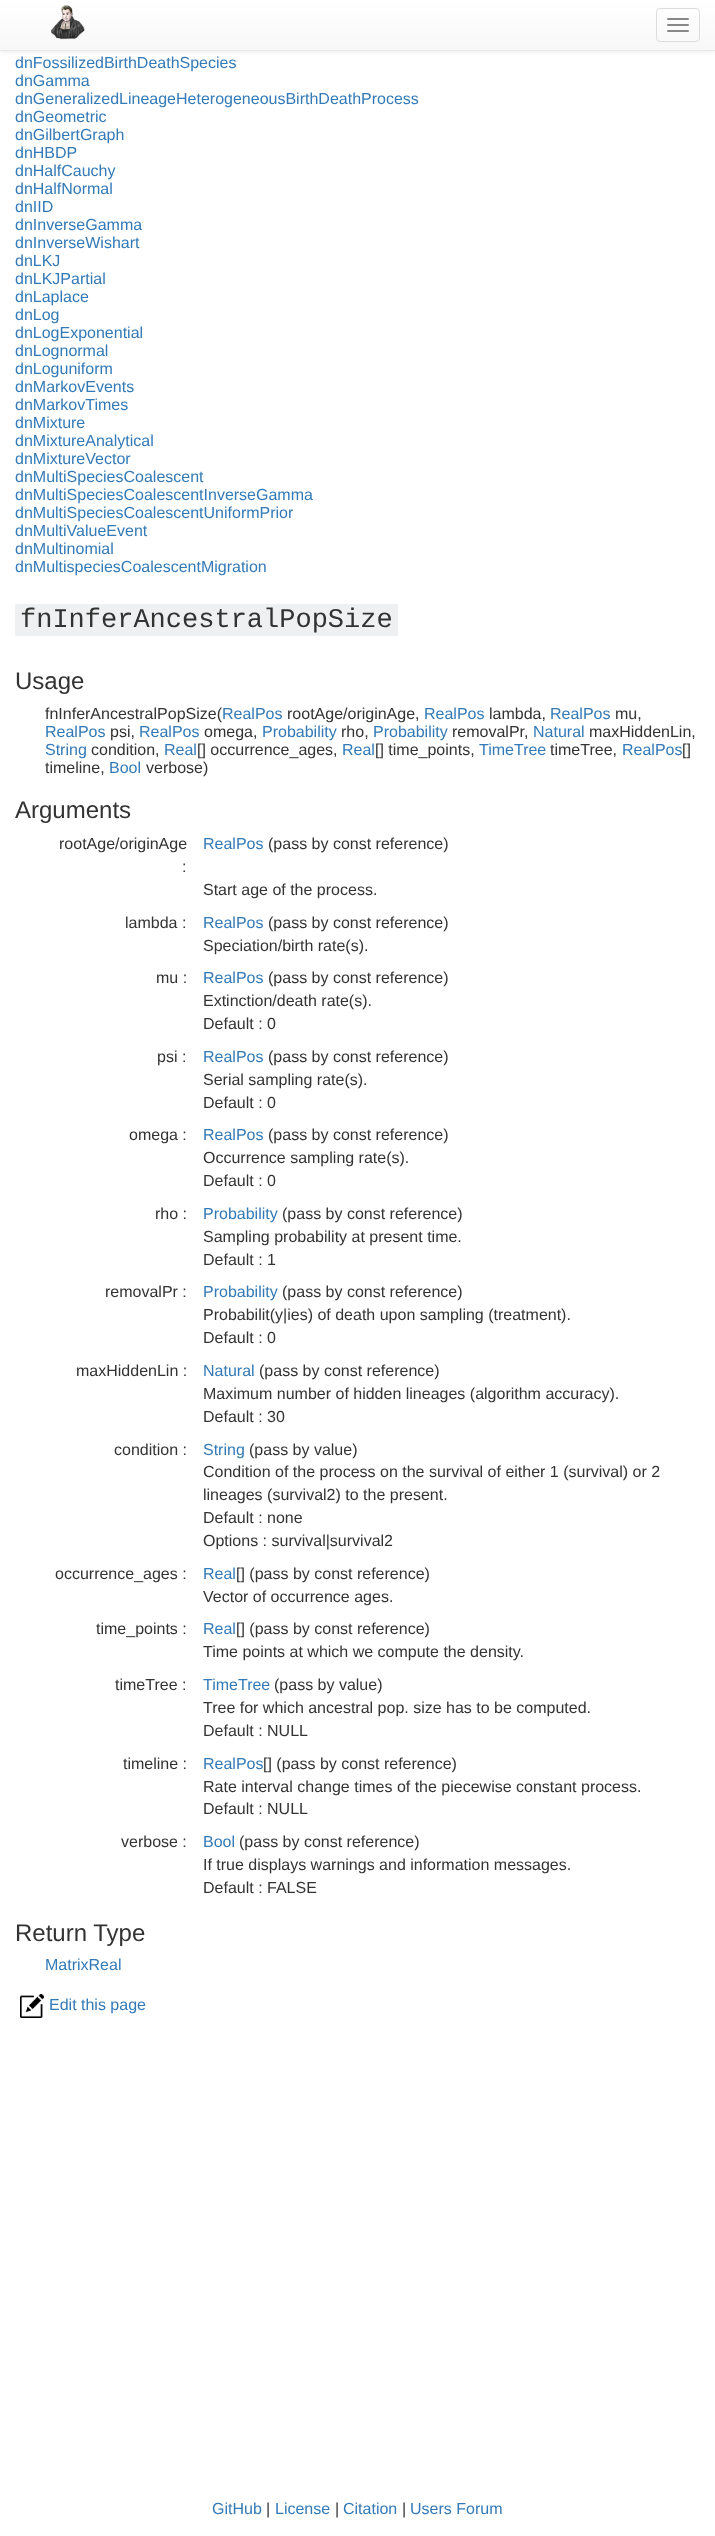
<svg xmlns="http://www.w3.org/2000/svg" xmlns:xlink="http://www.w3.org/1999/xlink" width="715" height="2536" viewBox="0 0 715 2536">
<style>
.cls-1{font:16px Liberation Sans;fill:#337ab7}
.cls-2{font:27px Liberation Mono;fill:#333333}
.cls-3{font:24px Liberation Sans;fill:#333333}
.cls-4{font:16px Liberation Sans;fill:#333333}
</style>
<defs>
<linearGradient id="g1" gradientUnits="userSpaceOnUse" x1="358" y1="0" x2="358" y2="50"><stop offset="0" stop-color="#ffffff"/><stop offset="1" stop-color="#f8f8f8"/></linearGradient>
</defs>
<rect width="100%" height="100%" fill="#ffffff"/>
<rect fill="#000000" fill-opacity="0.07" filter="blur(2.5px)" x="0" y="1" width="715" height="51"/>
<rect fill="url(#g1)" x="0" y="0" width="715" height="50"/>
<rect fill="#e7e7e7" x="0" y="50" width="715" height="1"/>
<image xlink:href="image0.png" x="51" y="5" width="34" height="35"/>
<rect fill="none" stroke="#dddddd" x="656.5" y="8.5" width="43" height="33" rx="3.5"/>
<rect fill="#888888" x="667" y="18" width="22" height="2" rx="1"/>
<rect fill="#888888" x="667" y="24" width="22" height="2" rx="1"/>
<rect fill="#888888" x="667" y="30" width="22" height="2" rx="1"/>
<rect fill="#eff0f1" x="15" y="604" width="383" height="32"/>
<image xlink:href="image1.png" x="20" y="1994" width="24" height="24"/>
<text class="cls-1"><tspan x="15" y="68">dnFossilizedBirthDeathSpecies</tspan><tspan x="15" y="86">dnGamma</tspan><tspan x="15" y="104">dnGeneralizedLineageHeterogeneousBirthDeathProcess</tspan><tspan x="15" y="122">dnGeometric</tspan><tspan x="15" y="140">dnGilbertGraph</tspan><tspan x="15" y="158">dnHBDP</tspan><tspan x="15" y="176">dnHalfCauchy</tspan><tspan x="15" y="194">dnHalfNormal</tspan><tspan x="15" y="212">dnIID</tspan><tspan x="15" y="230">dnInverseGamma</tspan><tspan x="15" y="248">dnInverseWishart</tspan><tspan x="15" y="266">dnLKJ</tspan><tspan x="15" y="284">dnLKJPartial</tspan><tspan x="15" y="302">dnLaplace</tspan><tspan x="15" y="320">dnLog</tspan><tspan x="15" y="338">dnLogExponential</tspan><tspan x="15" y="356">dnLognormal</tspan><tspan x="15" y="374">dnLoguniform</tspan><tspan x="15" y="392">dnMarkovEvents</tspan><tspan x="15" y="410">dnMarkovTimes</tspan><tspan x="15" y="428">dnMixture</tspan><tspan x="15" y="446">dnMixtureAnalytical</tspan><tspan x="15" y="464">dnMixtureVector</tspan><tspan x="15" y="482">dnMultiSpeciesCoalescent</tspan><tspan x="15" y="500">dnMultiSpeciesCoalescentInverseGamma</tspan><tspan x="15" y="518">dnMultiSpeciesCoalescentUniformPrior</tspan><tspan x="15" y="536">dnMultiValueEvent</tspan><tspan x="15" y="554">dnMultinomial</tspan><tspan x="15" y="572">dnMultispeciesCoalescentMigration</tspan></text>
<text class="cls-2" x="20" y="627">fnInferAncestralPopSize</text>
<text class="cls-3" x="15" y="689">Usage</text>
<text class="cls-4" x="45" y="719">fnInferAncestralPopSize(</text>
<text class="cls-1" x="222" y="719">RealPos</text>
<text class="cls-4" x="287" y="719">rootAge/originAge,</text>
<text class="cls-1" x="424" y="719">RealPos</text>
<text class="cls-4" x="489" y="719">lambda,</text>
<text class="cls-1" x="550" y="719">RealPos</text>
<text class="cls-4" x="615" y="719">mu,</text>
<text class="cls-1" x="45" y="737">RealPos</text>
<text class="cls-4" x="110" y="737">psi,</text>
<text class="cls-1" x="139" y="737">RealPos</text>
<text class="cls-4" x="204" y="737">omega,</text>
<text class="cls-1" x="262" y="737">Probability</text>
<text class="cls-4" x="341" y="737">rho,</text>
<text class="cls-1" x="373" y="737">Probability</text>
<text class="cls-4" x="452" y="737">removalPr,</text>
<text class="cls-1" x="533" y="737">Natural</text>
<text class="cls-4" x="589" y="737">maxHiddenLin,</text>
<text class="cls-1" x="45" y="755">String</text>
<text class="cls-4" x="91" y="755">condition,</text>
<text class="cls-1" x="164" y="755">Real</text>
<text class="cls-4" x="197" y="755">[] occurrence_ages,</text>
<text class="cls-1" x="342" y="755">Real</text>
<text class="cls-4" x="375" y="755">[] time_points,</text>
<text class="cls-1" x="479" y="755">TimeTree</text>
<text class="cls-4" x="550" y="755">timeTree,</text>
<text class="cls-1" x="622" y="755">RealPos</text>
<text class="cls-4" x="682" y="755">[]</text>
<text class="cls-4" x="45" y="773">timeline,</text>
<text class="cls-1" x="109" y="773">Bool</text>
<text class="cls-4" x="146" y="773">verbose)</text>
<text class="cls-3" x="15" y="818">Arguments</text>
<text class="cls-4" x="59" y="849">rootAge/originAge</text>
<text class="cls-4" x="182" y="872">:</text>
<text class="cls-1" x="203" y="849">RealPos</text>
<text class="cls-4" x="268" y="849">(pass by const reference)</text>
<text class="cls-4" x="203" y="895">Start age of the process.</text>
<text class="cls-4" x="125" y="928">lambda :</text>
<text class="cls-1" x="203" y="928">RealPos</text>
<text class="cls-4" x="268" y="928">(pass by const reference)</text>
<text class="cls-4" x="203" y="951">Speciation/birth rate(s).</text>
<text class="cls-4" x="156" y="983">mu :</text>
<text class="cls-1" x="203" y="983">RealPos</text>
<text class="cls-4" x="268" y="983">(pass by const reference)</text>
<text class="cls-4"><tspan x="203" y="1006">Extinction/death rate(s).</tspan><tspan x="203" y="1029">Default : 0</tspan></text>
<text class="cls-4" x="157" y="1062">psi :</text>
<text class="cls-1" x="203" y="1062">RealPos</text>
<text class="cls-4" x="268" y="1062">(pass by const reference)</text>
<text class="cls-4"><tspan x="203" y="1085">Serial sampling rate(s).</tspan><tspan x="203" y="1108">Default : 0</tspan></text>
<text class="cls-4" x="129" y="1140">omega :</text>
<text class="cls-1" x="203" y="1140">RealPos</text>
<text class="cls-4" x="268" y="1140">(pass by const reference)</text>
<text class="cls-4"><tspan x="203" y="1163">Occurrence sampling rate(s).</tspan><tspan x="203" y="1186">Default : 0</tspan></text>
<text class="cls-4" x="155" y="1219">rho :</text>
<text class="cls-1" x="203" y="1219">Probability</text>
<text class="cls-4" x="282" y="1219">(pass by const reference)</text>
<text class="cls-4"><tspan x="203" y="1242">Sampling probability at present time.</tspan><tspan x="203" y="1265">Default : 1</tspan></text>
<text class="cls-4" x="105" y="1297">removalPr :</text>
<text class="cls-1" x="203" y="1297">Probability</text>
<text class="cls-4" x="282" y="1297">(pass by const reference)</text>
<text class="cls-4"><tspan x="203" y="1320">Probabilit(y|ies) of death upon sampling (treatment).</tspan><tspan x="203" y="1343">Default : 0</tspan></text>
<text class="cls-4" x="76" y="1376">maxHiddenLin :</text>
<text class="cls-1" x="203" y="1376">Natural</text>
<text class="cls-4" x="259" y="1376">(pass by const reference)</text>
<text class="cls-4"><tspan x="203" y="1399">Maximum number of hidden lineages (algorithm accuracy).</tspan><tspan x="203" y="1422">Default : 30</tspan></text>
<text class="cls-4" x="114" y="1455">condition :</text>
<text class="cls-1" x="203" y="1455">String</text>
<text class="cls-4" x="249" y="1455">(pass by value)</text>
<text class="cls-4"><tspan x="203" y="1477">Condition of the process on the survival of either 1 (survival) or 2</tspan><tspan x="203" y="1500">lineages (survival2) to the present.</tspan><tspan x="203" y="1523">Default : none</tspan><tspan x="203" y="1546">Options : survival|survival2</tspan></text>
<text class="cls-4" x="55" y="1579">occurrence_ages :</text>
<text class="cls-1" x="203" y="1579">Real</text>
<text class="cls-4" x="236" y="1579">[] (pass by const reference)</text>
<text class="cls-4" x="203" y="1602">Vector of occurrence ages.</text>
<text class="cls-4" x="96" y="1634">time_points :</text>
<text class="cls-1" x="203" y="1634">Real</text>
<text class="cls-4" x="236" y="1634">[] (pass by const reference)</text>
<text class="cls-4" x="203" y="1657">Time points at which we compute the density.</text>
<text class="cls-4" x="115" y="1690">timeTree :</text>
<text class="cls-1" x="203" y="1690">TimeTree</text>
<text class="cls-4" x="274" y="1690">(pass by value)</text>
<text class="cls-4"><tspan x="203" y="1713">Tree for which ancestral pop. size has to be computed.</tspan><tspan x="203" y="1736">Default : NULL</tspan></text>
<text class="cls-4" x="123" y="1769">timeline :</text>
<text class="cls-1" x="203" y="1769">RealPos</text>
<text class="cls-4" x="263" y="1769">[] (pass by const reference)</text>
<text class="cls-4"><tspan x="203" y="1792">Rate interval change times of the piecewise constant process.</tspan><tspan x="203" y="1814">Default : NULL</tspan></text>
<text class="cls-4" x="121" y="1847">verbose :</text>
<text class="cls-1" x="203" y="1847">Bool</text>
<text class="cls-4" x="239" y="1847">(pass by const reference)</text>
<text class="cls-4"><tspan x="203" y="1870">If true displays warnings and information messages.</tspan><tspan x="203" y="1893">Default : FALSE</tspan></text>
<text class="cls-3" x="15" y="1941">Return Type</text>
<text class="cls-1" x="45" y="1970">MatrixReal</text>
<text class="cls-1" x="49" y="2010">Edit this page</text>
<text class="cls-1" x="212" y="2514">GitHub</text>
<text class="cls-4" x="266" y="2514">|</text>
<text class="cls-1" x="275" y="2514">License</text>
<text class="cls-4" x="335" y="2514">|</text>
<text class="cls-1" x="343" y="2514">Citation</text>
<text class="cls-4" x="402" y="2514">|</text>
<text class="cls-1" x="410" y="2514">Users Forum</text>
</svg>
